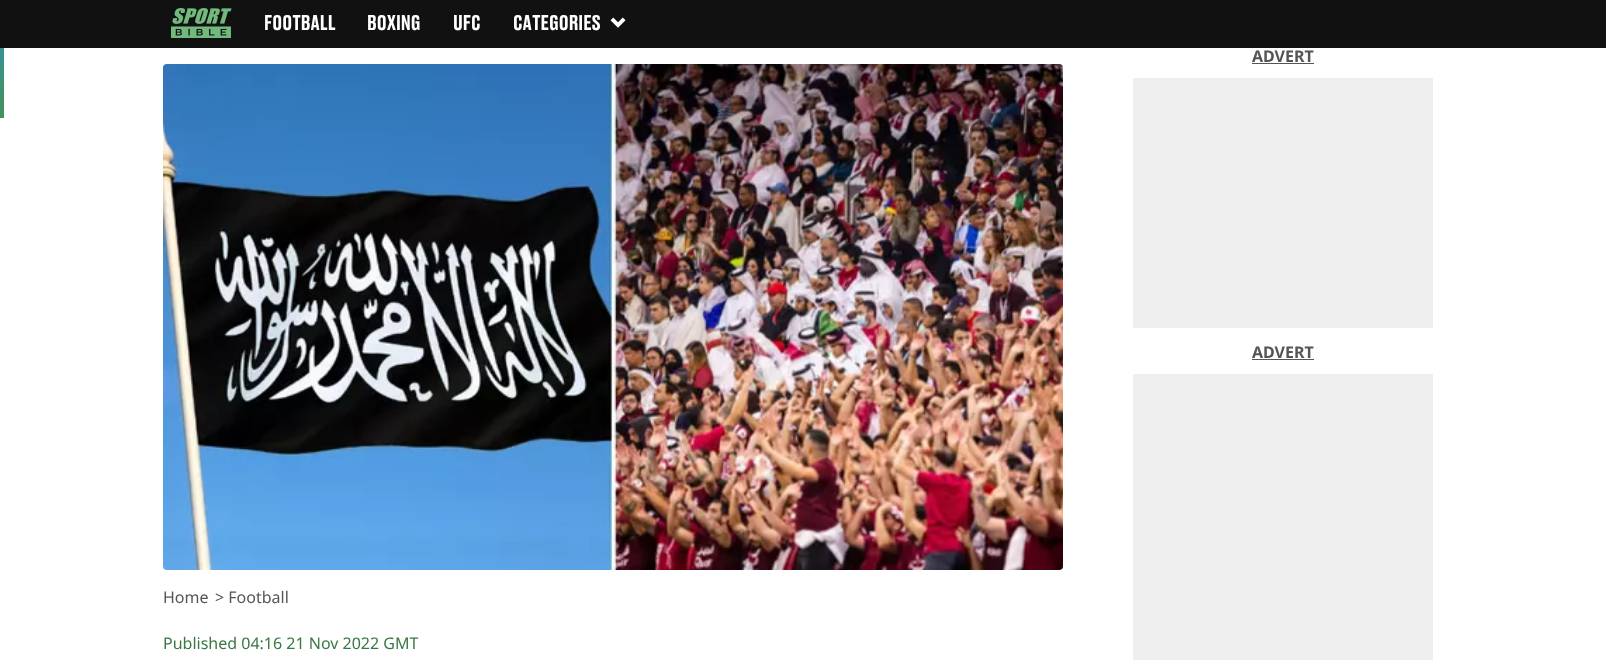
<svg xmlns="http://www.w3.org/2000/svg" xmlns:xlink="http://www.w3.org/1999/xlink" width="1606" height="660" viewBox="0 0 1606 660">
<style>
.cls-1{font:500 20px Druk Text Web;fill:#ffffff}
.cls-2{font:bold 16px Noto Sans;fill:#555555}
.cls-3{font:16px Noto Sans;fill:#555555}
.cls-4{font:16px Noto Sans;fill:#397843}
</style>
<defs>
<linearGradient id="g1" gradientUnits="userSpaceOnUse" x1="2" y1="0" x2="2" y2="118"><stop offset="0" stop-color="#2f93bf"/><stop offset="1" stop-color="#449155"/></linearGradient>
</defs>
<rect width="100%" height="100%" fill="#ffffff"/>
<rect fill="#111111" x="0" y="0" width="1606" height="48"/>
<image xlink:href="image0.png" x="171" y="8" width="61" height="30"/>
<image xlink:href="image1.png" x="610" y="17" width="16" height="11"/>
<rect fill="url(#g1)" x="0" y="48" width="4" height="70"/>
<rect fill="#555555" x="1252" y="63" width="62" height="1"/>
<rect fill="#efefef" x="1133" y="78" width="300" height="250"/>
<rect fill="#555555" x="1252" y="359" width="62" height="1"/>
<rect fill="#efefef" x="1133" y="374" width="300" height="286"/>
<image xlink:href="image2.png" x="163" y="64" width="900" height="506"/>
<text class="cls-1" x="264" y="30">FOOTBALL</text>
<text class="cls-1" x="367" y="30">BOXING</text>
<text class="cls-1" x="453" y="30">UFC</text>
<text class="cls-1" x="513" y="30">CATEGORIES</text>
<text class="cls-2" x="1252" y="62">ADVERT</text>
<text class="cls-2" x="1252" y="358">ADVERT</text>
<text class="cls-3" x="163" y="603">Home</text>
<text class="cls-3" x="215" y="603">&gt; Football</text>
<text class="cls-4" x="163" y="649">Published 04:16 21 Nov 2022 GMT</text>
</svg>
